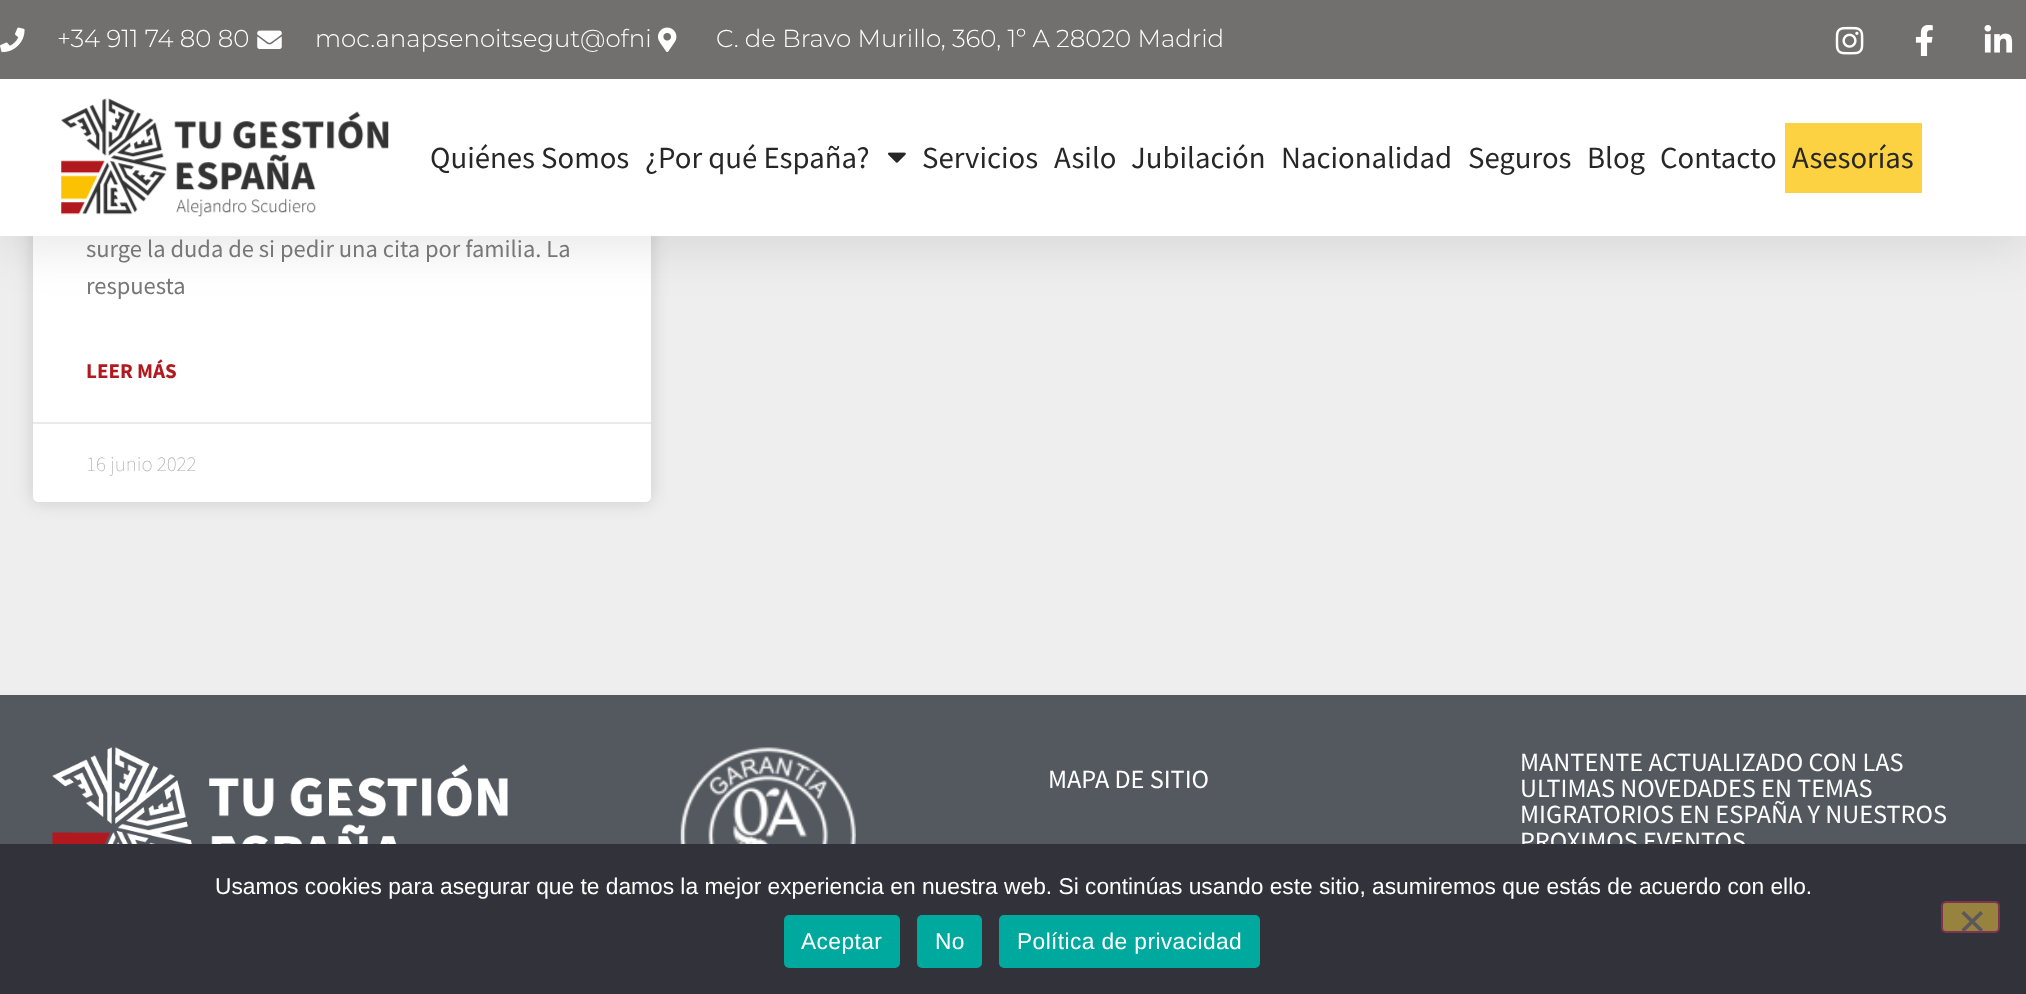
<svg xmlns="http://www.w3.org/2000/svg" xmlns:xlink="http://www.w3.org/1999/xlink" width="2026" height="994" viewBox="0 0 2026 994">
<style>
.cls-1{font:300 24.5px Montserrat;fill:#ffffff}
.cls-2{font:30.75px Source Sans Pro;fill:#272727}
.cls-3{font:24.5px Source Sans Pro;fill:#777777}
.cls-4{font:bold 21px Source Sans Pro;fill:#b1191f}
.cls-5{font:200 21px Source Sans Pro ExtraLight;fill:#adadad}
.cls-6{font:26.25px Source Sans Pro;fill:#ffffff}
.cls-7{font:22.75px Liberation Sans;fill:#ffffff}
.cls-8{font:22.75px Liberation Sans;letter-spacing:0.4px;fill:#ffffff}
</style>
<rect width="100%" height="100%" fill="#eeeeee"/>
<rect fill="#000000" fill-opacity="0.15" filter="blur(9px)" x="33" y="-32" width="618" height="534" rx="5"/>
<rect fill="#ffffff" x="33" y="-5" width="618" height="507" rx="5"/>
<rect fill="#000000" fill-opacity="0.1" filter="blur(26px)" x="0" y="9" width="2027" height="236"/>
<rect fill="#71706f" x="0" y="0" width="2026" height="79"/>
<image xlink:href="image0.png" x="0" y="27" width="25" height="26"/>
<image xlink:href="image1.png" x="257" y="30" width="25" height="19"/>
<image xlink:href="image2.png" x="658" y="27" width="19" height="25"/>
<image xlink:href="image3.png" x="1835" y="26" width="29" height="29"/>
<image xlink:href="image4.png" x="1915" y="25" width="18" height="31"/>
<image xlink:href="image5.png" x="1984" y="25" width="29" height="28"/>
<rect fill="#ffffff" x="0" y="79" width="2026" height="157"/>
<image xlink:href="image6.png" x="61" y="98" width="328" height="119"/>
<image xlink:href="image7.png" x="888" y="152" width="18" height="11"/>
<rect fill="#fcd142" x="1785" y="123" width="137" height="70"/>
<rect fill="#eaeaea" x="33" y="422" width="618" height="2"/>
<rect fill="#54595f" x="0" y="695" width="2026" height="149"/>
<image xlink:href="image8.png" x="52" y="747" width="456" height="97"/>
<image xlink:href="image9.png" x="680" y="747" width="176" height="97"/>
<text class="cls-1" x="57" y="47">+34 911 74 80 80</text>
<text class="cls-1" x="315" y="47">moc.anapsenoitsegut@ofni</text>
<text class="cls-1" x="716" y="47">C. de Bravo Murillo, 360, 1º A 28020 Madrid</text>
<text class="cls-2" x="430" y="168">Quiénes Somos</text>
<text class="cls-2" x="645" y="168">¿Por qué España?</text>
<text class="cls-2" x="922" y="168">Servicios</text>
<text class="cls-2" x="1054" y="168">Asilo</text>
<text class="cls-2" x="1131" y="168">Jubilación</text>
<text class="cls-2" x="1281" y="168">Nacionalidad</text>
<text class="cls-2" x="1468" y="168">Seguros</text>
<text class="cls-2" x="1587" y="168">Blog</text>
<text class="cls-2" x="1660" y="168">Contacto</text>
<text class="cls-2" x="1792" y="168">Asesorías</text>
<text class="cls-3"><tspan x="86" y="257">surge la duda de si pedir una cita por familia. La</tspan><tspan x="86" y="294">respuesta</tspan></text>
<text class="cls-4" x="86" y="378">LEER MÁS</text>
<text class="cls-5" x="86" y="471">16 junio 2022</text>
<text class="cls-6" x="1048" y="788">MAPA DE SITIO</text>
<text class="cls-6"><tspan x="1520" y="771">MANTENTE ACTUALIZADO CON LAS</tspan><tspan x="1520" y="797">ULTIMAS NOVEDADES EN TEMAS</tspan><tspan x="1520" y="823">MIGRATORIOS EN ESPAÑA Y NUESTROS</tspan><tspan x="1520" y="850">PROXIMOS EVENTOS</tspan></text>
<rect fill="#32323a" x="0" y="844" width="2026" height="150"/>
<text class="cls-7" x="215" y="894">Usamos cookies para asegurar que te damos la mejor experiencia en nuestra web. Si continúas usando este sitio, asumiremos que estás de acuerdo con ello.</text>
<rect fill="#97823e" stroke="#7f3350" stroke-width="2" x="1942" y="902" width="57" height="30" rx="4"/>
<path fill="#59595d" d="M1980.5 911L1983 913.5L1964 932L1961.5 929.5Z"/>
<path fill="#59595d" d="M1961.5 913.5L1964 911L1983 929.5L1980.5 932Z"/>
<rect fill="#00a99d" x="784" y="915" width="116" height="53" rx="5"/>
<text class="cls-8" x="801" y="949">Aceptar</text>
<rect fill="#00a99d" x="917" y="915" width="65" height="53" rx="5"/>
<text class="cls-8" x="935" y="949">No</text>
<rect fill="#00a99d" x="999" y="915" width="261" height="53" rx="5"/>
<text class="cls-8" x="1017" y="949">Política de privacidad</text>
</svg>
